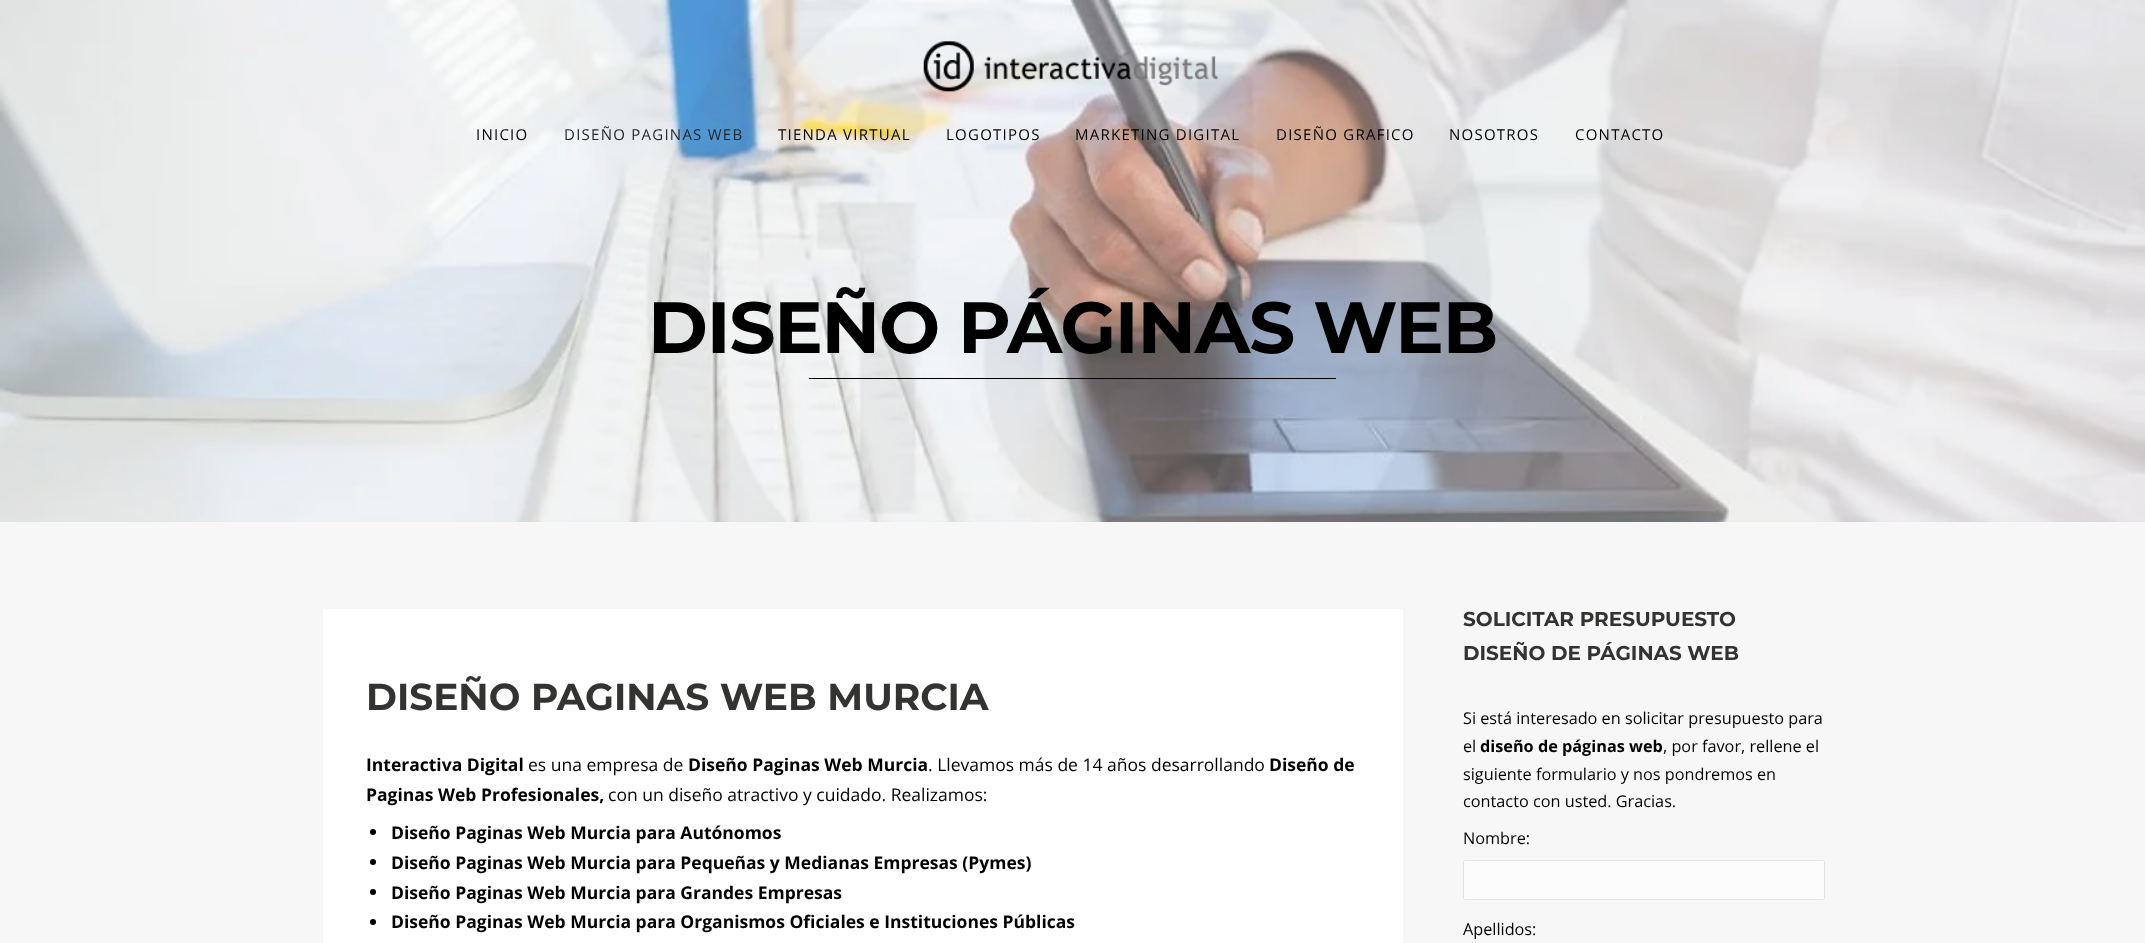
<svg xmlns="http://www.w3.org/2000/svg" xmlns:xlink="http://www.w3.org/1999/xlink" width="2145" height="943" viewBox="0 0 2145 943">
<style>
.cls-1{font:15px Open Sans;letter-spacing:1.25px;fill:#000000}
.cls-2{font:15px Open Sans;letter-spacing:1.25px;fill:#24292e}
.cls-3{font:bold 72.5px Montserrat;letter-spacing:-1.25px;fill:#000000}
.cls-4{font:bold 37.5px Montserrat;fill:#333332}
.cls-5{font:bold 17.5px Open Sans;fill:#000000}
.cls-6{font:17.5px Open Sans;fill:#000000}
.cls-7{font:bold 20px Montserrat;fill:#333332}
.cls-8{font:16.25px Open Sans;fill:#000000}
.cls-9{font:bold 16.25px Open Sans;fill:#000000}
</style>
<rect width="100%" height="100%" fill="#f7f7f7"/>
<rect fill="#ffffff" x="0" y="0" width="2145" height="521"/>
<image xlink:href="image0.png" x="0" y="0" width="2145" height="522"/>
<image xlink:href="image1.png" x="923" y="41" width="295" height="51"/>
<rect fill="#000000" x="809" y="378" width="527" height="1"/>
<rect fill="#ffffff" x="323" y="609" width="1080" height="334"/>
<circle fill="#000000" cx="373" cy="832" r="3"/>
<circle fill="#000000" cx="373" cy="862" r="3"/>
<circle fill="#000000" cx="373" cy="892" r="3"/>
<circle fill="#000000" cx="373" cy="922" r="3"/>
<rect fill="#fcfcfc" stroke="#e3e3e3" x="1463.5" y="860.5" width="361" height="39" rx="2"/>
<text class="cls-1" x="476" y="140">INICIO</text>
<text class="cls-2" x="564" y="140">DISEÑO PAGINAS WEB</text>
<text class="cls-1" x="778" y="140">TIENDA VIRTUAL</text>
<text class="cls-1" x="946" y="140">LOGOTIPOS</text>
<text class="cls-1" x="1075" y="140">MARKETING DIGITAL</text>
<text class="cls-1" x="1276" y="140">DISEÑO GRAFICO</text>
<text class="cls-1" x="1449" y="140">NOSOTROS</text>
<text class="cls-1" x="1575" y="140">CONTACTO</text>
<text class="cls-3" x="648" y="353">DISEÑO PÁGINAS WEB</text>
<text class="cls-4" x="366" y="710">DISEÑO PAGINAS WEB MURCIA</text>
<text class="cls-5" x="366" y="771">Interactiva Digital</text>
<text class="cls-6" x="528" y="771">es una empresa de</text>
<text class="cls-5" x="688" y="771">Diseño Paginas Web Murcia</text>
<text class="cls-6" x="928" y="771">. Llevamos más de 14 años desarrollando</text>
<text class="cls-5" x="1269" y="771">Diseño de</text>
<text class="cls-5" x="366" y="801">Paginas Web Profesionales,</text>
<text class="cls-6" x="608" y="801">con un diseño atractivo y cuidado. Realizamos:</text>
<text class="cls-5"><tspan x="391" y="839">Diseño Paginas Web Murcia para Autónomos</tspan><tspan x="391" y="869">Diseño Paginas Web Murcia para Pequeñas y Medianas Empresas (Pymes)</tspan><tspan x="391" y="899">Diseño Paginas Web Murcia para Grandes Empresas</tspan><tspan x="391" y="928">Diseño Paginas Web Murcia para Organismos Oficiales e Instituciones Públicas</tspan></text>
<text class="cls-7"><tspan x="1463" y="626">SOLICITAR PRESUPUESTO</tspan><tspan x="1463" y="660">DISEÑO DE PÁGINAS WEB</tspan></text>
<text class="cls-8"><tspan x="1463" y="724">Si está interesado en solicitar presupuesto para</tspan><tspan x="1463" y="752">el</tspan></text>
<text class="cls-9" x="1480" y="752">diseño de páginas web</text>
<text class="cls-8" x="1663" y="752">, por favor, rellene el</text>
<text class="cls-8"><tspan x="1463" y="780">siguiente formulario y nos pondremos en</tspan><tspan x="1463" y="807">contacto con usted. Gracias.</tspan></text>
<text class="cls-8" x="1463" y="844">Nombre:</text>
<text class="cls-8" x="1463" y="935">Apellidos:</text>
</svg>
